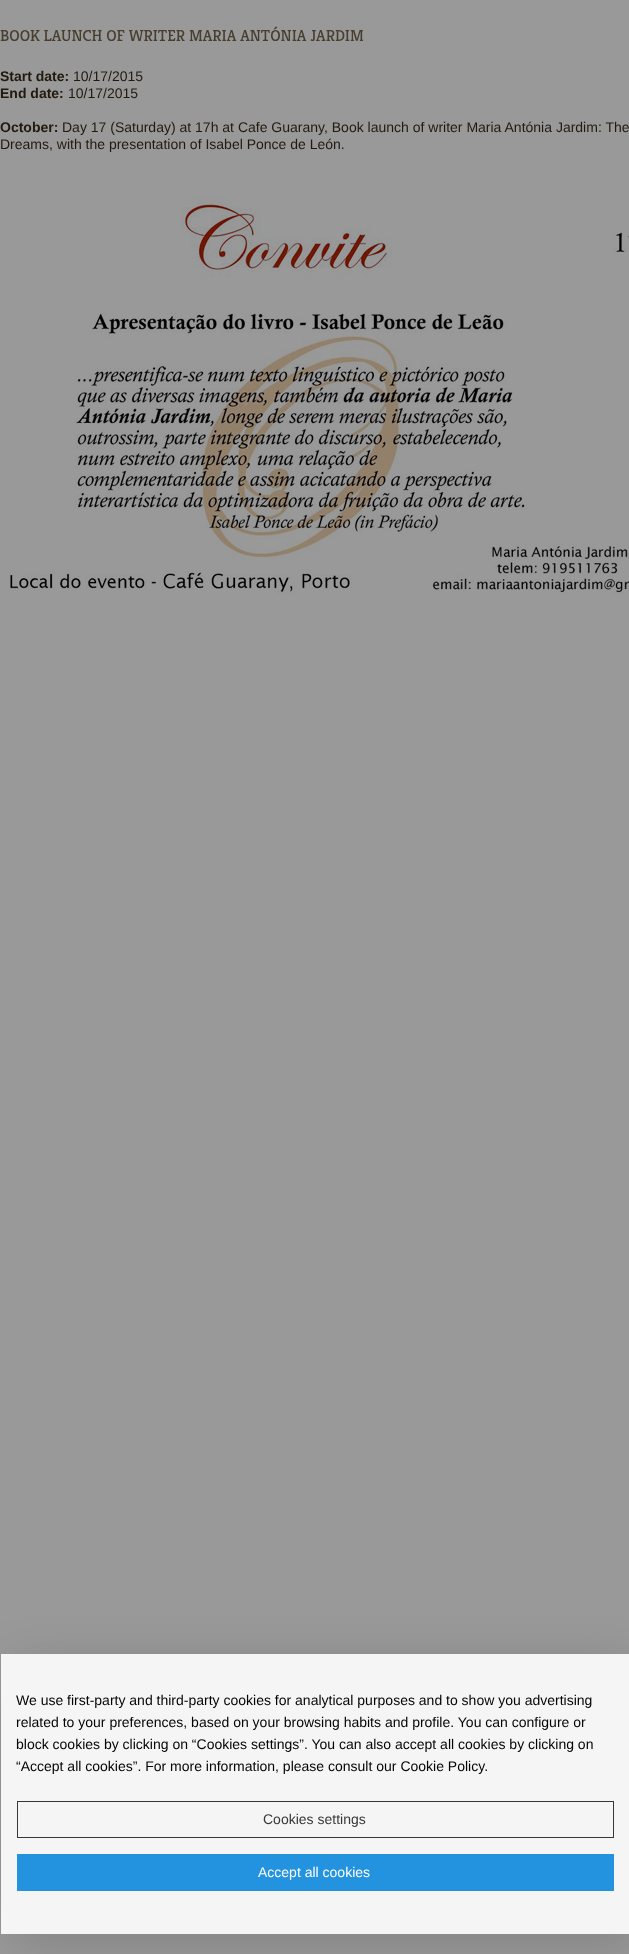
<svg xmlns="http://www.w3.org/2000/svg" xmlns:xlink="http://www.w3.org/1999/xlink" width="629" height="1954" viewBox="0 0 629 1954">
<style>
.cls-1{font:16px Kreon;fill:#483e2f}
.cls-2{font:bold 14px Liberation Sans;fill:#221a0f}
.cls-3{font:14px Liberation Sans;fill:#221a0f}
.cls-4{font:14px Liberation Sans;fill:#040404}
.cls-5{font:14px Liberation Sans;fill:#383838}
.cls-6{font:14px Liberation Sans;fill:#fefefe}
</style>
<rect width="100%" height="100%" fill="#999999"/>
<image xlink:href="image0.png" x="10" y="197" width="619" height="398"/>
<rect fill="#000000" fill-opacity="0.15" filter="blur(25px)" x="12" y="1665" width="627" height="278"/>
<rect fill="#f5f5f5" x="1" y="1654" width="628" height="280"/>
<rect fill="none" stroke="#383838" x="17.5" y="1801.5" width="596" height="36"/>
<rect fill="#2393e0" x="17" y="1854" width="597" height="37"/>
<text class="cls-1" x="0" y="41">BOOK LAUNCH OF WRITER MARIA ANTÓNIA JARDIM</text>
<text class="cls-2" x="0" y="81">Start date:</text>
<text class="cls-3" x="73" y="81">10/17/2015</text>
<text class="cls-2" x="0" y="98">End date:</text>
<text class="cls-3" x="68" y="98">10/17/2015</text>
<text class="cls-2" x="0" y="132">October:</text>
<text class="cls-3" x="62" y="132">Day 17 (Saturday) at 17h at Cafe Guarany, Book launch of writer Maria Antónia Jardim: The</text>
<text class="cls-3" x="0" y="149">Dreams, with the presentation of Isabel Ponce de León.</text>
<text class="cls-4"><tspan x="16" y="1705">We use first-party and third-party cookies for analytical purposes and to show you advertising</tspan><tspan x="16" y="1727">related to your preferences, based on your browsing habits and profile. You can configure or</tspan><tspan x="16" y="1749">block cookies by clicking on “Cookies settings”. You can also accept all cookies by clicking on</tspan><tspan x="16" y="1771">“Accept all cookies”. For more information, please consult our Cookie Policy.</tspan></text>
<text class="cls-5" x="263" y="1824">Cookies settings</text>
<text class="cls-6" x="258" y="1877">Accept all cookies</text>
</svg>
